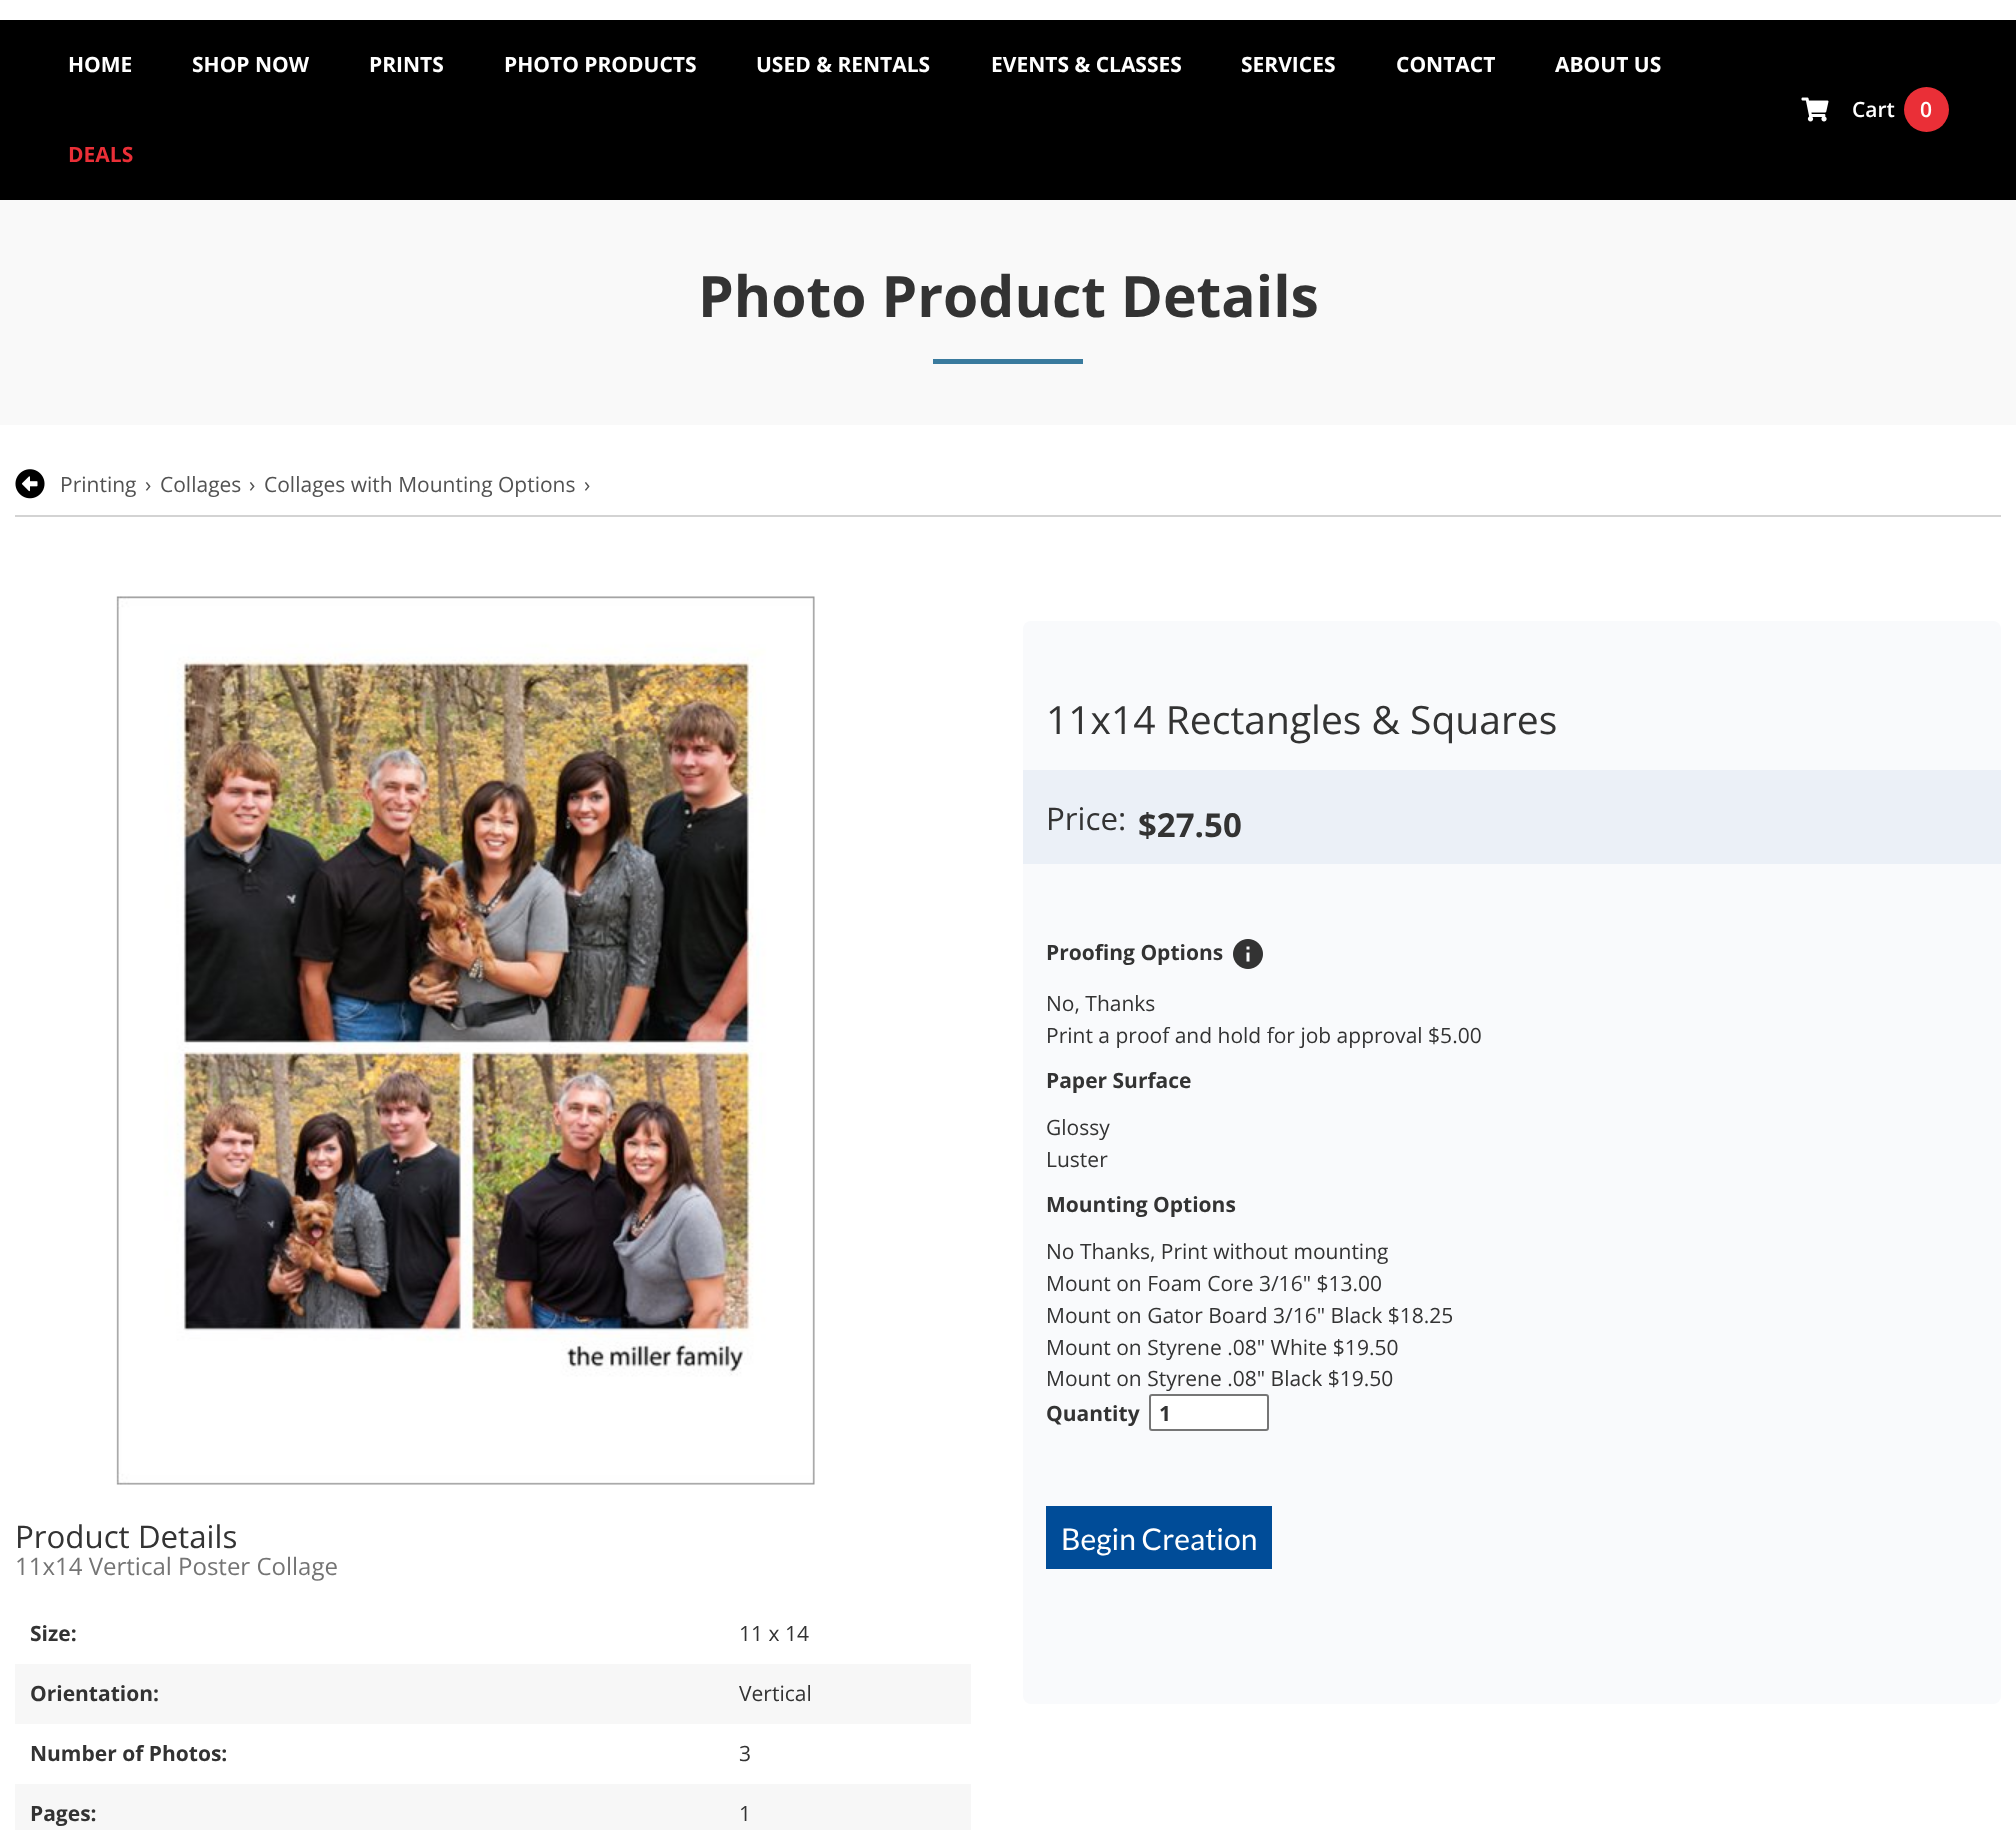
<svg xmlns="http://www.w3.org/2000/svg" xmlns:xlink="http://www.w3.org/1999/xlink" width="2016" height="1830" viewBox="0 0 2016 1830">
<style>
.cls-1{font:bold 21px Open Sans;fill:#ffffff}
.cls-2{font:bold 21px Open Sans;fill:#ea2f37}
.cls-3{font:600 21px Open Sans;fill:#ffffff}
.cls-4{font:bold 57px Open Sans;fill:#333333}
.cls-5{font:21px Open Sans;fill:#525252}
.cls-6{font:39px Open Sans;fill:#333333}
.cls-7{font:31.25px Open Sans;fill:#333333}
.cls-8{font:bold 33px Open Sans;fill:#333333}
.cls-9{font:bold 21px Open Sans;fill:#333333}
.cls-10{font:21px Open Sans;fill:#333333}
.cls-11{font:30px Lato;fill:#ffffff}
.cls-12{font:24px Open Sans;fill:#747474}
</style>
<rect width="100%" height="100%" fill="#ffffff"/>
<rect fill="#000000" x="0" y="20" width="2016" height="180"/>
<image xlink:href="image0.png" x="1801" y="97" width="28" height="25"/>
<circle fill="#ea2f37" cx="1926.5" cy="109.5" r="22.5"/>
<rect fill="#f9f9f9" x="0" y="200" width="2016" height="225"/>
<rect fill="#3a7b9e" x="933" y="359" width="150" height="5"/>
<rect fill="#d3d3d3" x="15" y="515" width="1986" height="2"/>
<image xlink:href="image1.png" x="15" y="469" width="30" height="30"/>
<rect fill="#f9fafc" x="1023" y="621" width="978" height="1083" rx="8"/>
<rect fill="#ebf0f7" x="1023" y="770" width="978" height="94"/>
<image xlink:href="image2.png" x="1233" y="939" width="30" height="30"/>
<rect fill="#ffffff" stroke="#767676" stroke-width="2" x="1150" y="1395" width="118" height="35" rx="2"/>
<rect fill="#004c98" x="1046" y="1506" width="226" height="63"/>
<image xlink:href="image3.png" x="116" y="596" width="699" height="889"/>
<rect fill="#f7f7f7" x="15" y="1664" width="956" height="60"/>
<rect fill="#f7f7f7" x="15" y="1784" width="956" height="46"/>
<text class="cls-1" x="68" y="72">HOME</text>
<text class="cls-1" x="192" y="72">SHOP NOW</text>
<text class="cls-1" x="369" y="72">PRINTS</text>
<text class="cls-1" x="504" y="72">PHOTO PRODUCTS</text>
<text class="cls-1" x="756" y="72">USED &amp; RENTALS</text>
<text class="cls-1" x="991" y="72">EVENTS &amp; CLASSES</text>
<text class="cls-1" x="1241" y="72">SERVICES</text>
<text class="cls-1" x="1396" y="72">CONTACT</text>
<text class="cls-1" x="1555" y="72">ABOUT US</text>
<text class="cls-2" x="68" y="162">DEALS</text>
<text class="cls-3" x="1852" y="117">Cart</text>
<text class="cls-3" x="1920" y="117">0</text>
<text class="cls-4" x="698" y="317">Photo Product Details</text>
<text class="cls-5" x="60" y="492">Printing</text>
<text class="cls-5" x="145" y="492">›</text>
<text class="cls-5" x="160" y="492">Collages</text>
<text class="cls-5" x="249" y="492">›</text>
<text class="cls-5" x="264" y="492">Collages with Mounting Options</text>
<text class="cls-5" x="584" y="492">›</text>
<text class="cls-6" x="1046" y="734">11x14 Rectangles &amp; Squares</text>
<text class="cls-7" x="1046" y="830">Price:</text>
<text class="cls-8" x="1138" y="837">$27.50</text>
<text class="cls-9" x="1046" y="960">Proofing Options</text>
<text class="cls-10"><tspan x="1046" y="1011">No, Thanks</tspan><tspan x="1046" y="1043">Print a proof and hold for job approval $5.00</tspan></text>
<text class="cls-9" x="1046" y="1088">Paper Surface</text>
<text class="cls-10"><tspan x="1046" y="1135">Glossy</tspan><tspan x="1046" y="1167">Luster</tspan></text>
<text class="cls-9" x="1046" y="1212">Mounting Options</text>
<text class="cls-10"><tspan x="1046" y="1259">No Thanks, Print without mounting</tspan><tspan x="1046" y="1291">Mount on Foam Core 3/16" $13.00</tspan><tspan x="1046" y="1323">Mount on Gator Board 3/16" Black $18.25</tspan><tspan x="1046" y="1355">Mount on Styrene .08" White $19.50</tspan><tspan x="1046" y="1386">Mount on Styrene .08" Black $19.50</tspan></text>
<text class="cls-9" x="1046" y="1421">Quantity</text>
<text class="cls-9" x="1159" y="1421">1</text>
<text class="cls-11" x="1061" y="1550">Begin Creation</text>
<text class="cls-7" x="15" y="1548">Product Details</text>
<text class="cls-12" x="15" y="1575">11x14 Vertical Poster Collage</text>
<text class="cls-9" x="30" y="1641">Size:</text>
<text class="cls-10" x="739" y="1641">11 x 14</text>
<text class="cls-9" x="30" y="1701">Orientation:</text>
<text class="cls-10" x="739" y="1701">Vertical</text>
<text class="cls-9" x="30" y="1761">Number of Photos:</text>
<text class="cls-10" x="739" y="1761">3</text>
<text class="cls-9" x="30" y="1821">Pages:</text>
<text class="cls-10" x="739" y="1821">1</text>
</svg>
